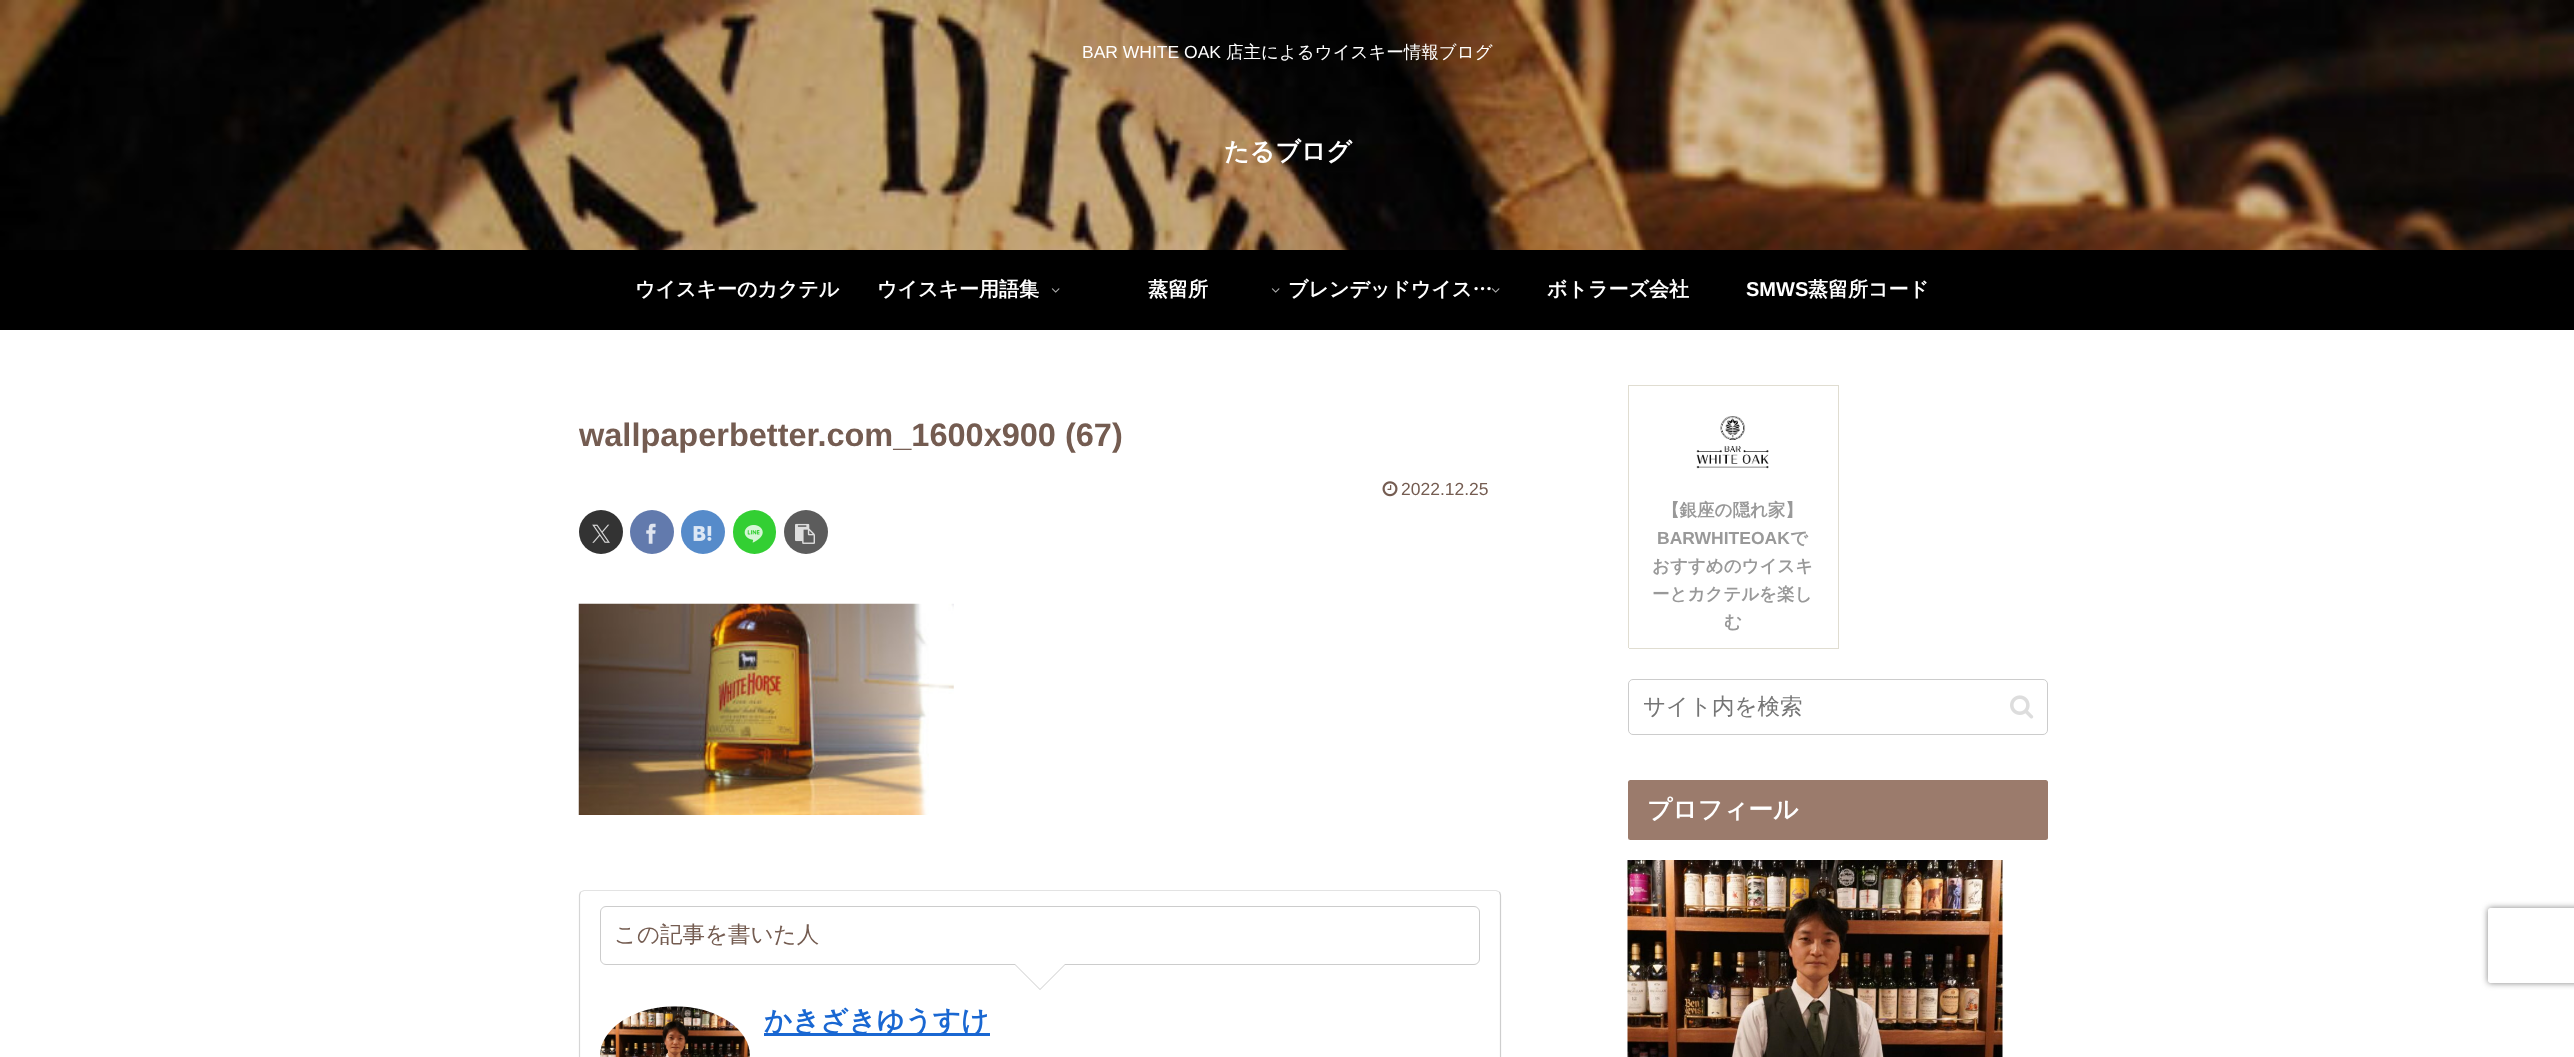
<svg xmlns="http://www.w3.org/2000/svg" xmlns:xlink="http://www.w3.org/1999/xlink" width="2574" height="1057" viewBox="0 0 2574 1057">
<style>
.cls-1{font:17.5px Liberation Sans;fill:#ffffff}
.cls-2{font:500 17.5px WenQuanYi Zen Hei;fill:#ffffff}
.cls-3{font:bold 25px WenQuanYi Zen Hei;fill:#ffffff}
.cls-4{font:bold 20px WenQuanYi Zen Hei;fill:#ffffff}
.cls-5{font:bold 20px Liberation Sans;fill:#ffffff}
.cls-6{font:bold 32.5px Liberation Sans;fill:#745c51}
.cls-7{font:17.5px Liberation Sans;fill:#745c51}
.cls-8{font:500 22.5px WenQuanYi Zen Hei;fill:#745c51}
.cls-9{font:bold 27.5px WenQuanYi Zen Hei;fill:#1967d2}
.cls-10{font:bold 17.5px WenQuanYi Zen Hei;fill:#999999}
.cls-11{font:bold 17.5px Liberation Sans;fill:#999999}
.cls-12{font:500 22.5px WenQuanYi Zen Hei;fill:#757575}
.cls-13{font:bold 24.75px WenQuanYi Zen Hei;fill:#ffffff}
</style>
<defs>
<clipPath id="clip1"><rect x="1628" y="385" width="210" height="263"/></clipPath>
<clipPath id="clip2"><path d="M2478 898H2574V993H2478ZM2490.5 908H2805.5C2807 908 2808 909 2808 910.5V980.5C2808 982 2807 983 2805.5 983H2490.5C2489 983 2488 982 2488 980.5V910.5C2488 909 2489 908 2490.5 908Z" clip-rule="evenodd"/></clipPath>
</defs>
<rect width="100%" height="100%" fill="#ffffff"/>
<image xlink:href="image0.png" x="0" y="0" width="2574" height="250"/>
<rect fill="#000000" x="0" y="250" width="2574" height="80"/>
<image xlink:href="image1.png" x="1051" y="288" width="9" height="5"/>
<image xlink:href="image1.png" x="1271" y="288" width="9" height="5"/>
<image xlink:href="image1.png" x="1491" y="288" width="9" height="5"/>
<image xlink:href="image2.png" x="1382" y="481" width="16" height="16"/>
<circle fill="#333333" cx="601" cy="532" r="22"/>
<image xlink:href="image3.png" x="592" y="524" width="18" height="19"/>
<circle fill="#627aad" cx="652" cy="532" r="22"/>
<image xlink:href="image4.png" x="646" y="523" width="10" height="21"/>
<circle fill="#568bca" cx="703" cy="532" r="22"/>
<image xlink:href="image5.png" x="693" y="526" width="19" height="15"/>
<rect fill="#33cf33" x="733" y="510" width="43" height="44" rx="21.5"/>
<image xlink:href="image6.png" x="744" y="525" width="19" height="18"/>
<circle fill="#5c5c5c" cx="806" cy="532" r="22"/>
<image xlink:href="image7.png" x="795" y="523" width="20" height="21"/>
<image xlink:href="image8.png" x="578" y="603" width="376" height="212"/>
<path fill="none" stroke="#e3e3e3" stroke-width="1.2" d="M580.5 892L584 890.5H1496L1499.5 892"/>
<path fill="none" stroke="#cecece" stroke-width="1.2" d="M1499.5 892L1500.5 895V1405L1499.5 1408"/>
<path fill="none" stroke="#d6d6d6" stroke-width="1.2" d="M580.5 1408L579.5 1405V895L580.5 892"/>
<rect fill="none" stroke="#cccccc" x="600.5" y="906.5" width="879" height="58" rx="5.5"/>
<path fill="#cccccc" d="M1014 964H1066L1040 990Z"/>
<path fill="#ffffff" d="M1015 964H1065L1040 989Z"/>
<image xlink:href="image9.png" x="600" y="1006" width="150" height="51"/>
<rect fill="#1967d2" x="764" y="1033" width="226" height="3"/>
<path fill="#e0ddd1" d="M1629 648H1839V385H1838V648Z"/>
<path fill="#e0ddd1" d="M1629 648V649H1839V386H1838V648Z"/>
<g clip-path="url(#clip1)">
<path fill="#e0ddd1" fill-rule="evenodd" d="M1504 261H1961V771H1504ZM1629 386H1839V649H1629Z"/>
</g>
<image xlink:href="image10.png" x="1696" y="416" width="73" height="53"/>
<rect fill="none" stroke="#cccccc" x="1628.5" y="679.5" width="419" height="55" rx="4.5"/>
<image xlink:href="image11.png" x="2010" y="695" width="24" height="24"/>
<rect fill="#9b7b6c" x="1628" y="780" width="420" height="60" rx="2.5"/>
<image xlink:href="image12.png" x="1627" y="860" width="376" height="197"/>
<g clip-path="url(#clip2)">
<rect fill="#808080" filter="blur(3px)" x="2488" y="908" width="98" height="75" rx="2.5"/>
</g>
<text class="cls-1" x="1082" y="58">BAR WHITE OAK</text>
<text class="cls-2" x="1226" y="58">店主によるウイスキー情報ブログ</text>
<text class="cls-3" x="1224" y="160">たるブログ</text>
<text class="cls-4" x="635" y="296">ウイスキーのカクテル</text>
<text class="cls-4" x="877" y="296">ウイスキー用語集</text>
<text class="cls-4" x="1148" y="296">蒸留所</text>
<text class="cls-4" x="1288" y="296">ブレンデッドウイス…</text>
<text class="cls-4" x="1547" y="296">ボトラーズ会社</text>
<text class="cls-5" x="1746" y="296">SMWS</text>
<text class="cls-4" x="1808" y="296">蒸留所コード</text>
<text class="cls-6" x="579" y="446">wallpaperbetter.com_1600x900 (67)</text>
<text class="cls-7" x="1401" y="495">2022.12.25</text>
<text class="cls-8" x="614" y="942">この記事を書いた人</text>
<text class="cls-9" x="764" y="1030">かきざきゆうすけ</text>
<text class="cls-10" x="1662" y="516">【銀座の隠れ家】</text>
<text class="cls-11" x="1657" y="544">BARWHITEOAK</text>
<text class="cls-10" x="1790" y="544">で</text>
<text class="cls-10"><tspan x="1652" y="572">おすすめのウイスキ</tspan><tspan x="1652" y="600">ーとカクテルを楽し</tspan></text>
<text class="cls-10" x="1724" y="628">む</text>
<text class="cls-12" x="1643" y="714">サイト内を検索</text>
<text class="cls-13" x="1647" y="818">プロフィール</text>
</svg>
